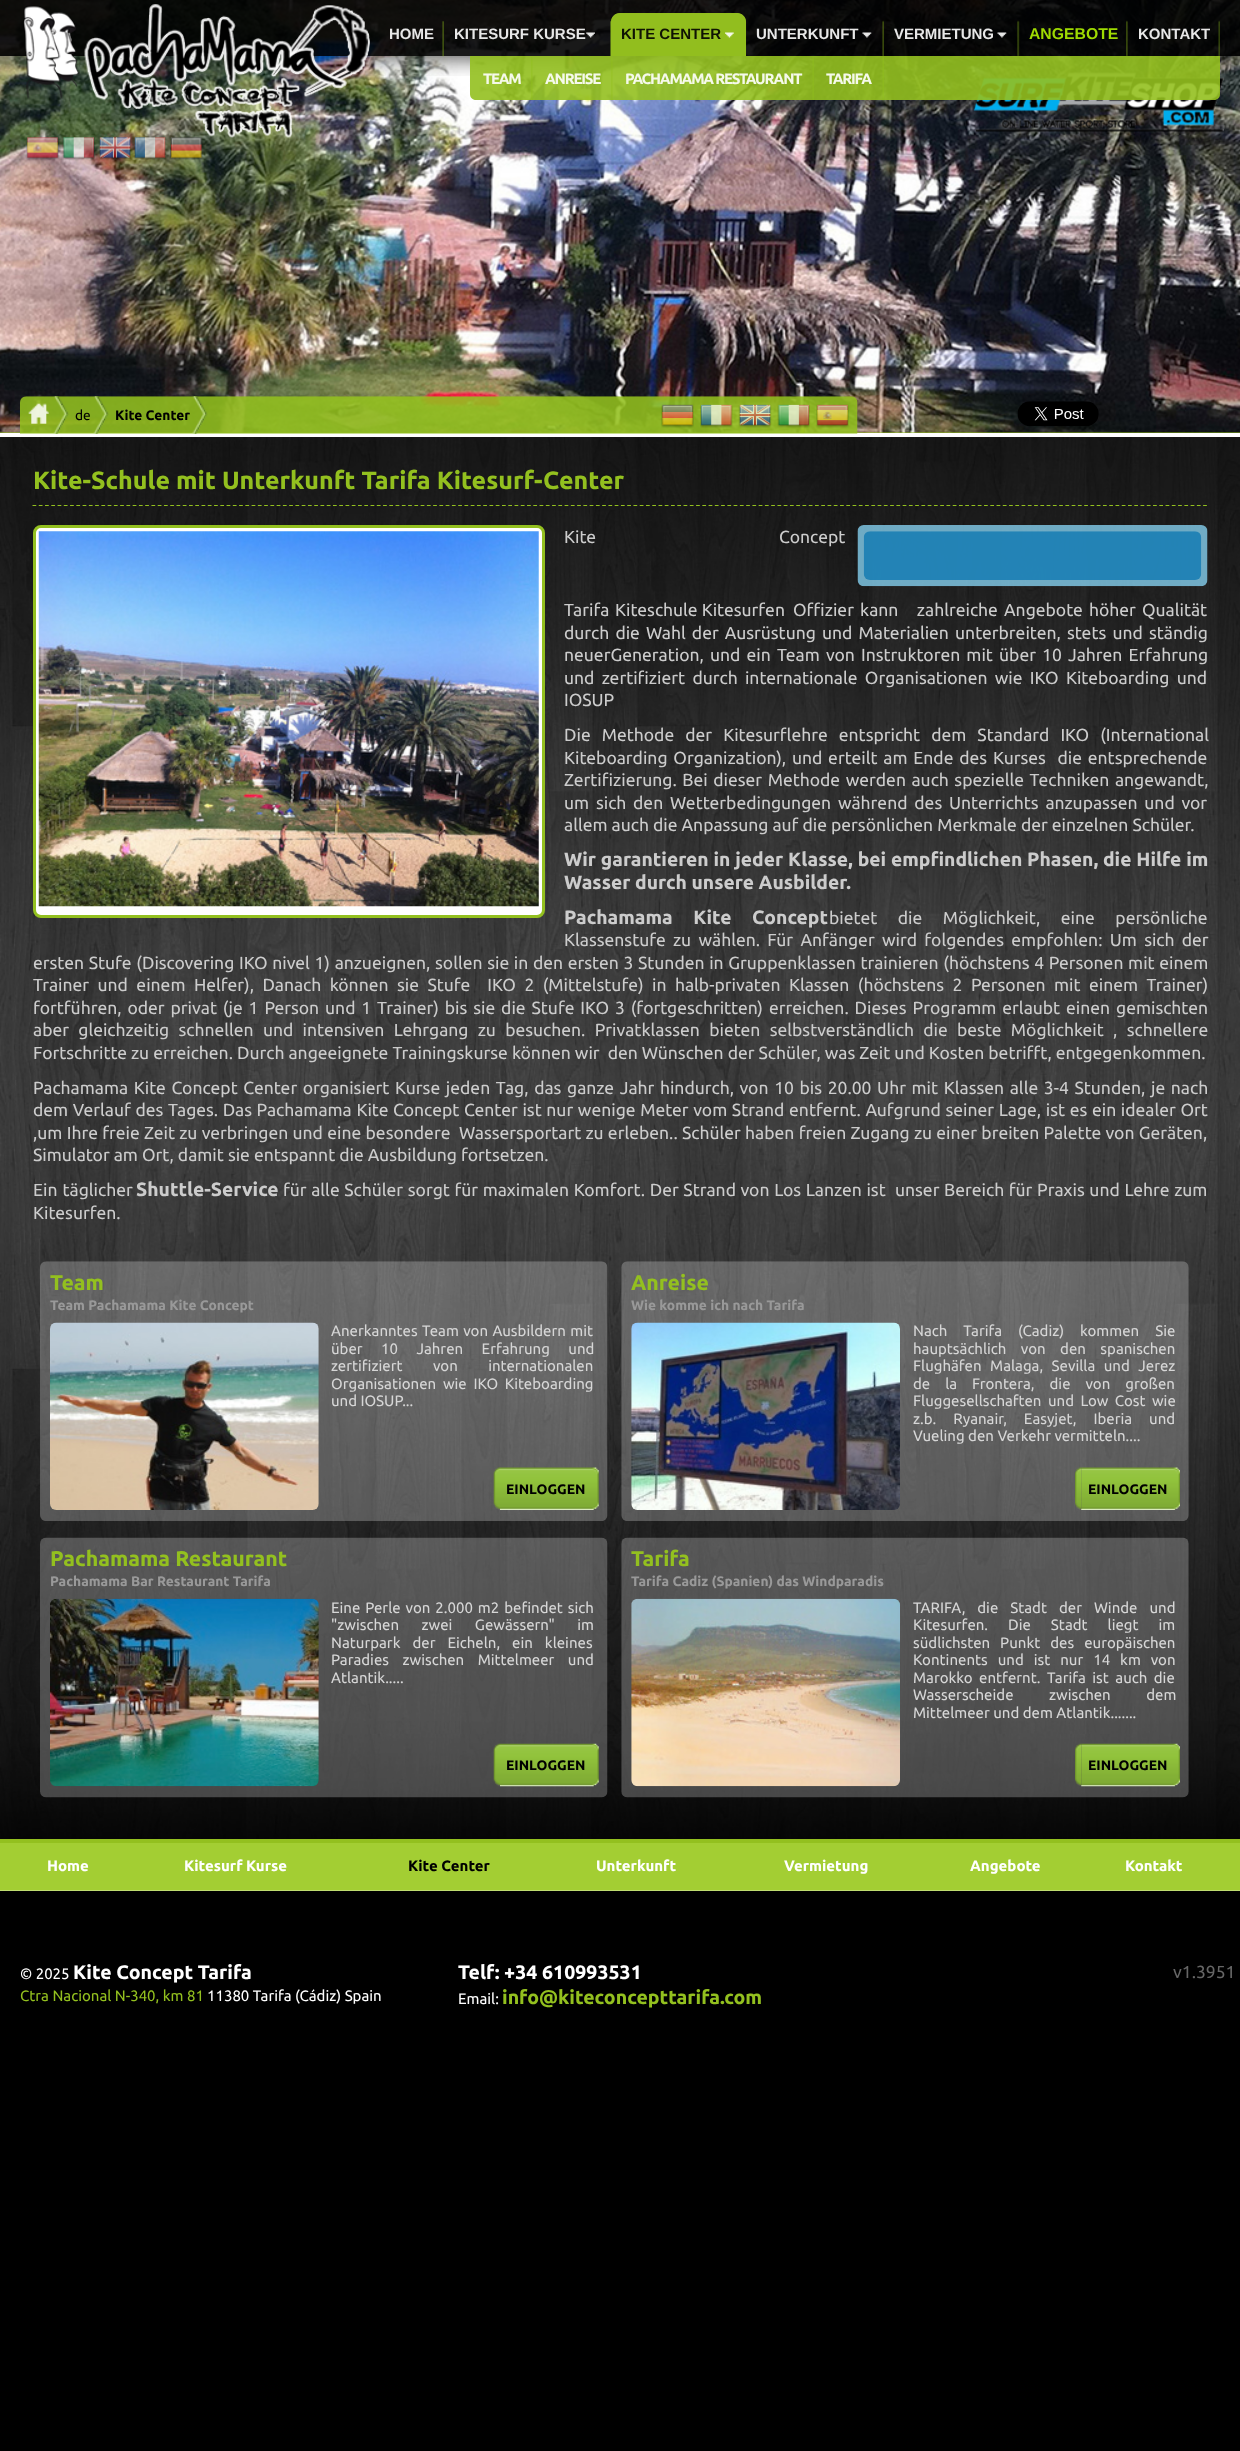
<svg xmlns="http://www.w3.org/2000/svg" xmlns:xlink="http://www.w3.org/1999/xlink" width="1240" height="2451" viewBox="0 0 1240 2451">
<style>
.cls-1{font:bold 15px Liberation Sans;fill:#e7e7e7}
.cls-2{font:bold 15px Liberation Sans;fill:#0f1303}
.cls-3{font:bold 15.75px Liberation Sans;fill:#9eda02}
.cls-4{font:bold 15px Ubuntu;letter-spacing:-1.25px;fill:#f5f9ea}
.cls-5{font:13.75px Ubuntu;fill:#000000}
.cls-6{font:bold 13.75px Ubuntu;fill:#000000}
.cls-7{font:bold 25px Ubuntu;fill:#93c01f}
.cls-8{font:17.5px Ubuntu;fill:#cccccc}
.cls-9{font:bold 19.25px Ubuntu;fill:#cccccc}
.cls-10{font:bold 21.25px Ubuntu;fill:#93c01f}
.cls-11{font:bold 13.75px Ubuntu;fill:#999999}
.cls-12{font:15px Ubuntu;fill:#d6d6d6}
.cls-13{font:bold 15px Ubuntu;fill:#ffffff}
.cls-14{font:bold 15px Ubuntu;fill:#000000}
.cls-15{font:15px Ubuntu;fill:#ffffff}
.cls-16{font:bold 19.5px Ubuntu;fill:#ffffff}
.cls-17{font:15px Ubuntu;fill:#93c01f}
.cls-18{font:bold 19.5px Ubuntu;fill:#93c01f}
.cls-19{font:17.5px Ubuntu;fill:#666666}
</style>
<rect width="100%" height="100%" fill="#000000"/>
<image xlink:href="image0.png" x="0" y="437" width="1240" height="1402"/>
<rect fill="#93c01f" x="0" y="432" width="1240" height="1"/>
<image xlink:href="image23.png" x="0" y="0" width="1240" height="433"/>
<rect fill="#000000" fill-opacity="0.9" x="0" y="0" width="1240" height="56"/>
<image xlink:href="image24.png" x="973" y="72" width="251" height="60"/>
<image xlink:href="image18.png" x="73" y="56" width="1135" height="20"/>
<image xlink:href="image1.png" x="23" y="4" width="347" height="134"/>
<image xlink:href="image2.png" x="26" y="137" width="33" height="24"/>
<image xlink:href="image3.png" x="62" y="137" width="33" height="24"/>
<image xlink:href="image4.png" x="98" y="137" width="33" height="24"/>
<image xlink:href="image5.png" x="133" y="137" width="33" height="23"/>
<image xlink:href="image6.png" x="170" y="137" width="33" height="23"/>
<image xlink:href="image7.png" x="442" y="21" width="2" height="36"/>
<image xlink:href="image8.png" x="610" y="21" width="2" height="35"/>
<image xlink:href="image9.png" x="586" y="32" width="9" height="6"/>
<path fill="#93c01f" fill-opacity="0.9" d="M620 13H737C742 13 746 17 746 22V56H611V22C611 17 615 13 620 13Z"/>
<image xlink:href="image10.png" x="745" y="21" width="2" height="35"/>
<path fill="#93c01f" fill-opacity="0.9" d="M620 13H737C742 13 746 17 746 22V56H611V22C611 17 615 13 620 13Z"/>
<image xlink:href="image11.png" x="725" y="32" width="9" height="6"/>
<path fill="#93c01f" fill-opacity="0.9" d="M470 56H1220V94C1220 97.5 1217.5 100 1214 100H476C472.5 100 470 97.5 470 94Z"/>
<image xlink:href="image22.png" x="882" y="55" width="2" height="46"/>
<image xlink:href="image12.png" x="882" y="20" width="2" height="36"/>
<image xlink:href="image13.png" x="862" y="32" width="10" height="6"/>
<image xlink:href="image14.png" x="1017" y="20" width="3" height="36"/>
<image xlink:href="image15.png" x="997" y="32" width="10" height="6"/>
<image xlink:href="image16.png" x="1126" y="20" width="2" height="36"/>
<image xlink:href="image17.png" x="1218" y="20" width="2" height="36"/>
<image xlink:href="image19.png" x="531" y="57" width="2" height="43"/>
<image xlink:href="image20.png" x="611" y="57" width="2" height="43"/>
<image xlink:href="image21.png" x="812" y="57" width="2" height="43"/>
<rect fill="#ffffff" x="0" y="433" width="1240" height="4"/>
<image xlink:href="image25.png" x="20" y="396" width="838" height="38"/>
<image xlink:href="image26.png" x="53" y="396" width="16" height="38"/>
<image xlink:href="image27.png" x="28" y="403" width="21" height="21"/>
<image xlink:href="image28.png" x="93" y="396" width="16" height="38"/>
<image xlink:href="image29.png" x="192" y="396" width="16" height="38"/>
<image xlink:href="image30.png" x="661" y="404" width="33" height="24"/>
<image xlink:href="image31.png" x="700" y="404" width="33" height="24"/>
<image xlink:href="image32.png" x="738" y="404" width="34" height="24"/>
<image xlink:href="image33.png" x="777" y="404" width="33" height="24"/>
<image xlink:href="image34.png" x="816" y="404" width="33" height="24"/>
<image xlink:href="image35.png" x="1017" y="401" width="82" height="25"/>
<path fill="none" stroke="#93c01f" stroke-width="1.2" stroke-dasharray="3.75 2.51" d="M32.5 505.5H1207.5"/>
<rect fill="#ffffff" stroke="#93c01f" stroke-width="3" x="34.5" y="526.5" width="509" height="390" rx="6.5"/>
<image xlink:href="image36.png" x="38" y="531" width="501" height="376"/>
<image xlink:href="image37.png" x="857" y="525" width="351" height="62"/>
<image xlink:href="image38.png" x="863" y="531" width="339" height="49"/>
<image xlink:href="image39.png" x="40" y="1261" width="568" height="260"/>
<image xlink:href="image40.png" x="50" y="1322" width="269" height="188"/>
<image xlink:href="image41.png" x="500" y="1467" width="99" height="43"/>
<image xlink:href="image42.png" x="493" y="1467" width="7" height="43"/>
<image xlink:href="image43.png" x="621" y="1261" width="568" height="260"/>
<image xlink:href="image44.png" x="631" y="1322" width="269" height="188"/>
<image xlink:href="image45.png" x="1081" y="1467" width="99" height="43"/>
<image xlink:href="image46.png" x="1075" y="1467" width="7" height="43"/>
<image xlink:href="image47.png" x="40" y="1537" width="568" height="261"/>
<image xlink:href="image48.png" x="50" y="1598" width="269" height="189"/>
<image xlink:href="image49.png" x="500" y="1743" width="99" height="44"/>
<image xlink:href="image50.png" x="493" y="1743" width="7" height="44"/>
<image xlink:href="image51.png" x="621" y="1537" width="568" height="261"/>
<image xlink:href="image52.png" x="631" y="1598" width="269" height="189"/>
<image xlink:href="image53.png" x="1081" y="1743" width="99" height="44"/>
<image xlink:href="image54.png" x="1075" y="1743" width="7" height="43"/>
<rect fill="#93c01f" x="0" y="1839" width="1240" height="4"/>
<rect fill="#a3ce33" x="0" y="1843" width="1240" height="47"/>
<rect fill="#bfdd70" x="0" y="1890" width="1240" height="1"/>
<text class="cls-1" x="389" y="39">HOME</text>
<text class="cls-1" x="454" y="39">KITESURF KURSE</text>
<text class="cls-2" x="621" y="39">KITE CENTER</text>
<text class="cls-1" x="756" y="39">UNTERKUNFT</text>
<text class="cls-1" x="894" y="39">VERMIETUNG</text>
<text class="cls-3" x="1029" y="39">ANGEBOTE</text>
<text class="cls-1" x="1138" y="39">KONTAKT</text>
<text class="cls-4" x="483" y="84">TEAM</text>
<text class="cls-4" x="545" y="84">ANREISE</text>
<text class="cls-4" x="625" y="84">PACHAMAMA RESTAURANT</text>
<text class="cls-4" x="826" y="84">TARIFA</text>
<text class="cls-5" x="75" y="420">de</text>
<text class="cls-6" x="115" y="420">Kite Center</text>
<text class="cls-7" x="33" y="489">Kite-Schule mit Unterkunft Tarifa Kitesurf-Center</text>
<text class="cls-8" x="564" y="543" word-spacing="179">Kite Concept</text>
<text class="cls-8" x="564" y="616">Tarifa</text>
<text class="cls-8" x="615" y="616">Kiteschule Kitesurfen</text>
<text class="cls-8" xml:space="preserve" x="793" y="616" word-spacing="2.1">Offizier kann   zahlreiche Angebote höher Qualität</text>
<text class="cls-8"><tspan x="564" y="639" word-spacing="2.1">durch die Wahl der Ausrüstung und Materialien unterbreiten, stets und ständig</tspan><tspan x="564" y="661" word-spacing="2.1">neuerGeneration, und ein Team von Instruktoren mit über 10 Jahren Erfahrung</tspan><tspan x="564" y="684" word-spacing="3.25">und zertifiziert durch internationale Organisationen wie IKO Kiteboarding und</tspan><tspan x="564" y="706">IOSUP</tspan></text>
<text class="cls-8" xml:space="preserve"><tspan x="564" y="741" word-spacing="7">Die Methode der Kitesurflehre entspricht dem Standard IKO (International</tspan><tspan x="564" y="764" word-spacing="1.75">Kiteboarding Organization), und erteilt am Ende des Kurses  die entsprechende</tspan><tspan x="564" y="786" word-spacing="1.5">Zertifizierung. Bei dieser Methode werden auch spezielle Techniken angewandt,</tspan><tspan x="564" y="809" word-spacing="2.75">um sich den Wetterbedingungen während des Unterrichts anzupassen und vor</tspan><tspan x="564" y="831">allem auch die Anpassung auf die persönlichen Merkmale der einzelnen Schüler.</tspan></text>
<text class="cls-9"><tspan x="564" y="866" word-spacing="0.25">Wir garantieren in jeder Klasse, bei empfindlichen Phasen, die Hilfe im</tspan><tspan x="564" y="889">Wasser durch unsere Ausbilder.</tspan><tspan x="564" y="924" word-spacing="16">Pachamama Kite Concept</tspan></text>
<text class="cls-8" x="829" y="924" word-spacing="16.5">bietet die Möglichkeit, eine persönliche</text>
<text class="cls-8" x="564" y="946" word-spacing="3.25">Klassenstufe zu wählen. Für Anfänger wird folgendes empfohlen: Um sich der</text>
<text class="cls-8" xml:space="preserve"><tspan x="33" y="969" word-spacing="0.6">ersten Stufe (Discovering IKO nivel 1) anzueignen, sollen sie in den ersten 3 Stunden in Gruppenklassen trainieren (höchstens 4 Personen mit einem</tspan><tspan x="33" y="991" word-spacing="4.4">Trainer und einem Helfer), Danach können sie Stufe  IKO 2 (Mittelstufe) in halb-privaten Klassen (höchstens 2 Personen mit einem Trainer)</tspan><tspan x="33" y="1014" word-spacing="1.85">fortführen, oder privat (je 1 Person und 1 Trainer) bis sie die Stufe IKO 3 (fortgeschritten) erreichen. Dieses Programm erlaubt einen gemischten</tspan><tspan x="33" y="1036" word-spacing="5.25">aber gleichzeitig schnellen und intensiven Lehrgang zu besuchen. Privatklassen bieten selbstverständlich die beste Möglichkeit , schnellere</tspan><tspan x="33" y="1059">Fortschritte zu erreichen. Durch angeeignete Trainingskurse können wir  den Wünschen der Schüler, was Zeit und Kosten betrifft, entgegenkommen.</tspan></text>
<text class="cls-8" xml:space="preserve"><tspan x="33" y="1094" word-spacing="1.6">Pachamama Kite Concept Center organisiert Kurse jeden Tag, das ganze Jahr hindurch, von 10 bis 20.00 Uhr mit Klassen alle 3-4 Stunden, je nach</tspan><tspan x="33" y="1116" word-spacing="0.6">dem Verlauf des Tages. Das Pachamama Kite Concept Center ist nur wenige Meter vom Strand entfernt. Aufgrund seiner Lage, ist es ein idealer Ort</tspan><tspan x="33" y="1139" word-spacing="0.25">,um Ihre freie Zeit zu verbringen und eine besondere  Wassersportart zu erleben.. Schüler haben freien Zugang zu einer breiten Palette von Geräten,</tspan><tspan x="33" y="1161">Simulator am Ort, damit sie entspannt die Ausbildung fortsetzen.</tspan></text>
<text class="cls-8" x="33" y="1196" word-spacing="1">Ein täglicher</text>
<text class="cls-9" x="136" y="1196">Shuttle-Service</text>
<text class="cls-8" xml:space="preserve" x="283" y="1196" word-spacing="0.6">für alle Schüler sorgt für maximalen Komfort. Der Strand von Los Lanzen ist  unser Bereich für Praxis und Lehre zum</text>
<text class="cls-8" x="33" y="1219">Kitesurfen.</text>
<text class="cls-10" x="50" y="1290">Team</text>
<text class="cls-11" x="50" y="1310">Team Pachamama Kite Concept</text>
<text class="cls-12"><tspan x="331" y="1336" word-spacing="1">Anerkanntes Team von Ausbildern mit</tspan><tspan x="331" y="1354" word-spacing="15">über 10 Jahren Erfahrung und</tspan><tspan x="331" y="1371" word-spacing="27">zertifiziert von internationalen</tspan><tspan x="331" y="1389" word-spacing="3.25">Organisationen wie IKO Kiteboarding</tspan><tspan x="331" y="1406">und IOSUP...</tspan></text>
<text class="cls-6" x="506" y="1494">EINLOGGEN</text>
<text class="cls-10" x="631" y="1290">Anreise</text>
<text class="cls-11" x="631" y="1310">Wie komme ich nach Tarifa</text>
<text class="cls-12"><tspan x="913" y="1336" word-spacing="12.5">Nach Tarifa (Cadiz) kommen Sie</tspan><tspan x="913" y="1354" word-spacing="11">hauptsächlich von den spanischen</tspan><tspan x="913" y="1371" word-spacing="5">Flughäfen Malaga, Sevilla und Jerez</tspan><tspan x="913" y="1389" word-spacing="11.5">de la Frontera, die von großen</tspan><tspan x="913" y="1406" word-spacing="3">Fluggesellschaften und Low Cost wie</tspan><tspan x="913" y="1424" word-spacing="13.5">z.b. Ryanair, Easyjet, Iberia und</tspan><tspan x="913" y="1441">Vueling den Verkehr vermitteln....</tspan></text>
<text class="cls-6" x="1088" y="1494">EINLOGGEN</text>
<text class="cls-10" x="50" y="1566">Pachamama Restaurant</text>
<text class="cls-11" x="50" y="1586">Pachamama Bar Restaurant Tarifa</text>
<text class="cls-12"><tspan x="331" y="1613" word-spacing="1.5">Eine Perle von 2.000 m2 befindet sich</tspan><tspan x="331" y="1630" word-spacing="19">"zwischen zwei Gewässern" im</tspan><tspan x="331" y="1648" word-spacing="8.5">Naturpark der Eicheln, ein kleines</tspan><tspan x="331" y="1665" word-spacing="10">Paradies zwischen Mittelmeer und</tspan><tspan x="331" y="1683">Atlantik.....</tspan></text>
<text class="cls-6" x="506" y="1770">EINLOGGEN</text>
<text class="cls-10" x="631" y="1566">Tarifa</text>
<text class="cls-11" x="631" y="1586">Tarifa Cadiz (Spanien) das Windparadis</text>
<text class="cls-12"><tspan x="913" y="1613" word-spacing="8.5">TARIFA, die Stadt der Winde und</tspan><tspan x="913" y="1630" word-spacing="16.5">Kitesurfen. Die Stadt liegt im</tspan><tspan x="913" y="1648" word-spacing="6.5">südlichsten Punkt des europäischen</tspan><tspan x="913" y="1665" word-spacing="6.5">Kontinents und ist nur 14 km von</tspan><tspan x="913" y="1683" word-spacing="3">Marokko entfernt. Tarifa ist auch die</tspan><tspan x="913" y="1700" word-spacing="32">Wasserscheide zwischen dem</tspan><tspan x="913" y="1718">Mittelmeer und dem Atlantik.......</tspan></text>
<text class="cls-6" x="1088" y="1770">EINLOGGEN</text>
<text class="cls-13" x="47" y="1871">Home</text>
<text class="cls-13" x="184" y="1871">Kitesurf Kurse</text>
<text class="cls-14" x="408" y="1871">Kite Center</text>
<text class="cls-13" x="596" y="1871">Unterkunft</text>
<text class="cls-13" x="784" y="1871">Vermietung</text>
<text class="cls-13" x="970" y="1871">Angebote</text>
<text class="cls-13" x="1125" y="1871">Kontakt</text>
<text class="cls-15" x="20" y="1979">© 2025</text>
<text class="cls-16" x="73" y="1979">Kite Concept Tarifa</text>
<text class="cls-17" x="20" y="2001">Ctra Nacional N-340, km 81</text>
<text class="cls-15" x="207" y="2001">11380 Tarifa (Cádiz) Spain</text>
<text class="cls-16" x="458" y="1979">Telf: +34 610993531</text>
<text class="cls-15" x="458" y="2004">Email:</text>
<text class="cls-18" x="502" y="2004">info@kiteconcepttarifa.com</text>
<text class="cls-19" x="1173" y="1978">v1.3951</text>
</svg>
